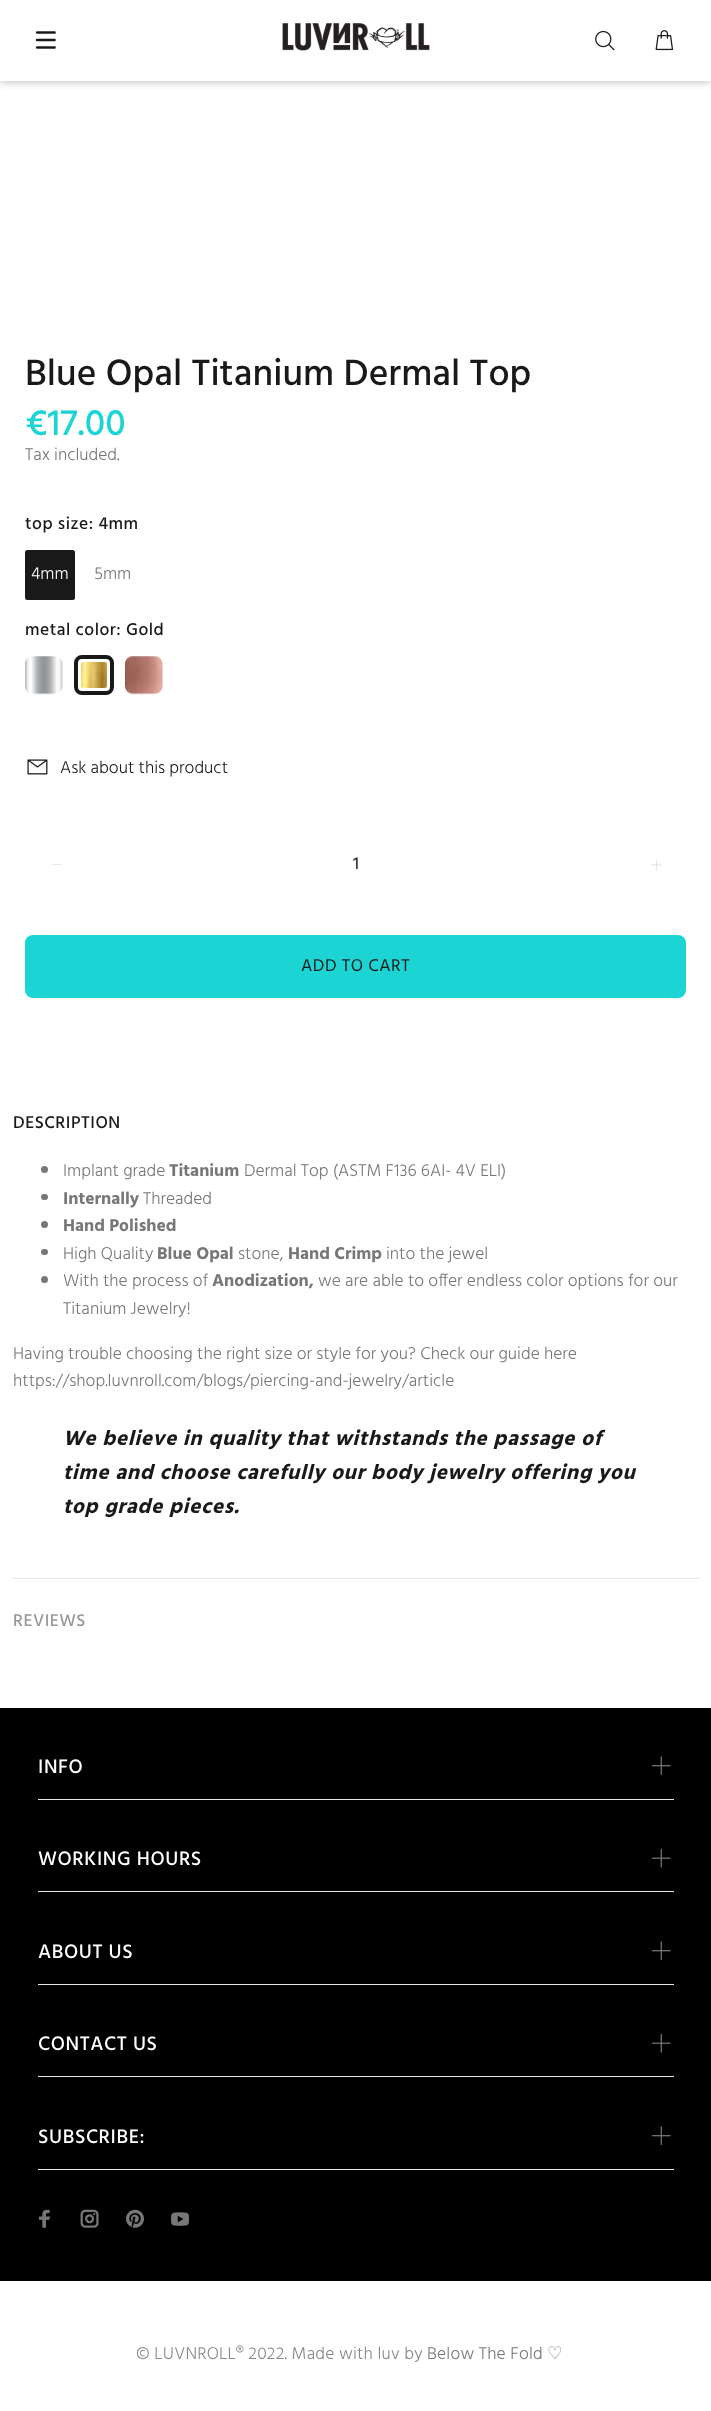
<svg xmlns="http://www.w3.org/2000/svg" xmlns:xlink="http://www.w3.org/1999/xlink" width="711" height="2411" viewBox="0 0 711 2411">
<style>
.cls-1{font:500 37.5px Hind;letter-spacing:0.05px;fill:#191919}
.cls-2{font:500 37.5px Hind;fill:#1dd4d4}
.cls-3{font:300 17.5px Hind;fill:#777777}
.cls-4{font:500 17.5px Hind;letter-spacing:0.5px;fill:#191919}
.cls-5{font:300 17.5px Hind;fill:#ffffff}
.cls-6{font:300 17.5px Hind;fill:#191919}
.cls-7{font:500 17.5px Hind;fill:#333333}
.cls-8{font:17.5px Hind;letter-spacing:0.5px;fill:#191919}
.cls-9{font:bold 17.5px Hind;fill:#777777}
.cls-10{font:italic bold 21.25px Hind;letter-spacing:0.65px;fill:#191919}
.cls-11{font:500 17.5px Hind;letter-spacing:0.5px;fill:#999999}
.cls-12{font:500 20px Hind;letter-spacing:0.6px;fill:#ffffff}
.cls-13{font:300 17.5px Hind;letter-spacing:0.2px;fill:#888888}
.cls-14{font:300 17.5px Hind;letter-spacing:0.2px;fill:#777777}
.cls-15{font:17.5px DejaVu Sans;letter-spacing:0.2px;fill:#888888}
</style>
<rect width="100%" height="100%" fill="#ffffff"/>
<rect fill="#000000" fill-opacity="0.3" filter="blur(5px)" x="0" y="0" width="711" height="81"/>
<rect fill="#ffffff" x="0" y="0" width="711" height="81"/>
<image xlink:href="image0.png" x="35" y="31" width="21" height="18"/>
<image xlink:href="image1.png" x="282" y="23" width="148" height="28"/>
<image xlink:href="image2.png" x="595" y="30" width="20" height="21"/>
<image xlink:href="image3.png" x="655" y="30" width="19" height="21"/>
<rect fill="#191919" x="25" y="550" width="50" height="50" rx="2.5"/>
<image xlink:href="image4.png" x="25" y="656" width="38" height="39"/>
<image xlink:href="image5.png" x="75" y="662" width="32" height="33"/>
<rect fill="none" stroke="#ffffff" stroke-width="6" x="78" y="659" width="32" height="32" rx="5"/>
<rect fill="none" stroke="#191919" stroke-width="4" x="76" y="657" width="36" height="36" rx="6"/>
<image xlink:href="image6.png" x="125" y="656" width="38" height="39"/>
<image xlink:href="image7.png" x="27" y="759" width="21" height="16"/>
<path fill="#d8d8d8" d="M62 864.5V865H51V864.5Z"/>
<image xlink:href="image8.png" x="650" y="859" width="12" height="12"/>
<rect fill="#1dd4d4" x="25" y="935" width="661" height="63" rx="8"/>
<rect fill="#e9e7e7" x="13" y="1578" width="686" height="1"/>
<circle fill="#777777" cx="44.5" cy="1169.5" r="3.5"/>
<rect fill="#777777" x="41" y="1194" width="7" height="6" rx="3"/>
<circle fill="#777777" cx="44.5" cy="1224.5" r="3.5"/>
<rect fill="#777777" x="41" y="1249" width="7" height="6" rx="3"/>
<circle fill="#777777" cx="44.5" cy="1279.5" r="3.5"/>
<rect fill="#000000" x="0" y="1708" width="711" height="573"/>
<rect fill="#e9e7e7" x="38" y="1799" width="636" height="1"/>
<image xlink:href="image9.png" x="651" y="1756" width="20" height="19"/>
<rect fill="#e9e7e7" x="38" y="1891" width="636" height="1"/>
<image xlink:href="image10.png" x="651" y="1848" width="20" height="20"/>
<rect fill="#e9e7e7" x="38" y="1984" width="636" height="1"/>
<image xlink:href="image9.png" x="651" y="1941" width="20" height="19"/>
<rect fill="#e9e7e7" x="38" y="2076" width="636" height="1"/>
<image xlink:href="image10.png" x="651" y="2033" width="20" height="20"/>
<rect fill="#e9e7e7" x="38" y="2169" width="636" height="1"/>
<image xlink:href="image9.png" x="651" y="2126" width="20" height="19"/>
<image xlink:href="image11.png" x="38" y="2209" width="13" height="19"/>
<image xlink:href="image12.png" x="80" y="2209" width="19" height="19"/>
<image xlink:href="image13.png" x="126" y="2209" width="18" height="19"/>
<image xlink:href="image14.png" x="171" y="2212" width="18" height="14"/>
<text class="cls-1" x="25" y="385">Blue Opal Titanium Dermal Top</text>
<text class="cls-2" x="25" y="435">€17.00</text>
<text class="cls-3" x="25" y="460">Tax included.</text>
<text class="cls-4" x="25" y="529">top size: 4mm</text>
<text class="cls-5" x="31" y="579">4mm</text>
<text class="cls-3" x="94" y="579">5mm</text>
<text class="cls-4" x="25" y="635">metal color: Gold</text>
<text class="cls-6" x="60" y="773">Ask about this product</text>
<text class="cls-7" x="353" y="869">1</text>
<text class="cls-8" x="301" y="971">ADD TO CART</text>
<text class="cls-4" x="13" y="1128">DESCRIPTION</text>
<text class="cls-3" x="63" y="1176">Implant grade</text>
<text class="cls-9" x="169" y="1176">Titanium</text>
<text class="cls-3" x="244" y="1176">Dermal Top (ASTM F136 6AI- 4V ELI)</text>
<text class="cls-9" x="63" y="1204">Internally</text>
<text class="cls-3" x="143" y="1204">Threaded</text>
<text class="cls-9" x="63" y="1231">Hand Polished</text>
<text class="cls-3" x="63" y="1259">High Quality</text>
<text class="cls-9" x="157" y="1259">Blue Opal</text>
<text class="cls-3" x="238" y="1259">stone,</text>
<text class="cls-9" x="288" y="1259">Hand Crimp</text>
<text class="cls-3" x="386" y="1259">into the jewel</text>
<text class="cls-3" x="63" y="1286">With the process of</text>
<text class="cls-9" x="212" y="1286">Anodization,</text>
<text class="cls-3" x="318" y="1286">we are able to offer endless color options for our</text>
<text class="cls-3" x="63" y="1314">Titanium Jewelry!</text>
<text class="cls-3"><tspan x="13" y="1359">Having trouble choosing the right size or style for you? Check our guide here</tspan><tspan x="13" y="1386">https://shop.luvnroll.com/blogs/piercing-and-jewelry/article</tspan></text>
<text class="cls-10"><tspan x="63" y="1445">We believe in quality that withstands the passage of</tspan><tspan x="63" y="1479">time and choose carefully our body jewelry offering you</tspan><tspan x="63" y="1513">top grade pieces.</tspan></text>
<text class="cls-11" x="13" y="1626">REVIEWS</text>
<text class="cls-12" x="38" y="1773">INFO</text>
<text class="cls-12" x="38" y="1865">WORKING HOURS</text>
<text class="cls-12" x="38" y="1958">ABOUT US</text>
<text class="cls-12" x="38" y="2050">CONTACT US</text>
<text class="cls-12" x="38" y="2143">SUBSCRIBE:</text>
<text class="cls-13" x="136" y="2359">© LUVNROLL® 2022. Made with luv by</text>
<text class="cls-14" x="427" y="2359">Below The Fold</text>
<text class="cls-15" x="547" y="2359">♡</text>
</svg>
